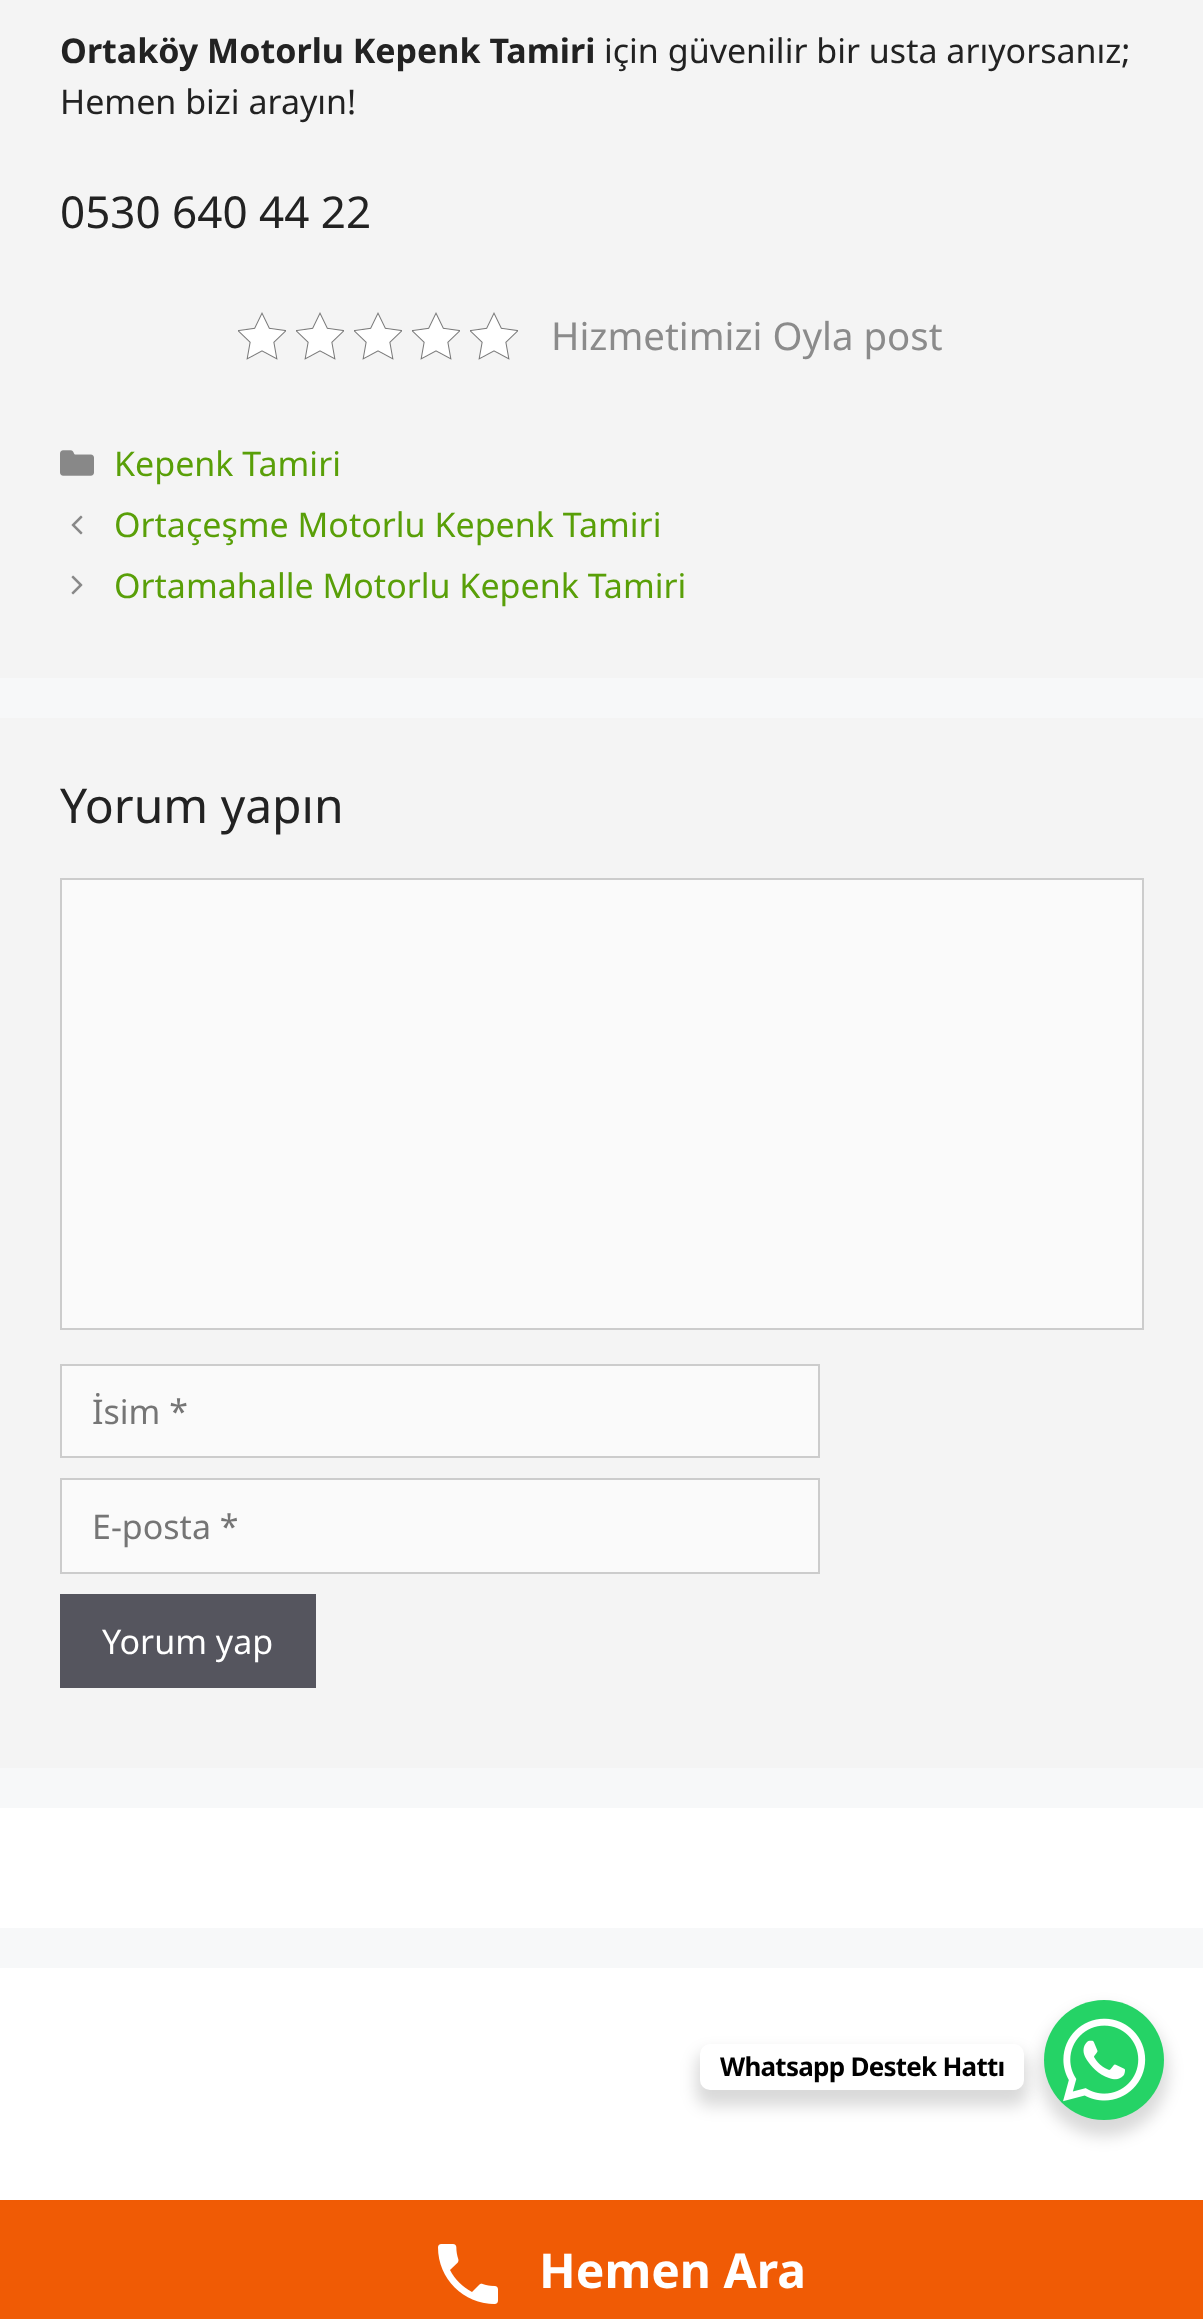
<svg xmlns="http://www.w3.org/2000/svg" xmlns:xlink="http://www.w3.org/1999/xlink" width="1203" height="2319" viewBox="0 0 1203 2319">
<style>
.cls-1{font:bold 34px Noto Sans;fill:#222222}
.cls-2{font:34px Noto Sans;fill:#222222}
.cls-3{font:44px Noto Sans;fill:#222222}
.cls-4{font:38.4px Noto Sans;fill:#8b8b8b}
.cls-5{font:34px Noto Sans;fill:#599f08}
.cls-6{font:48px Noto Sans;fill:#222222}
.cls-7{font:34px Noto Sans;fill:#757575}
.cls-8{font:34px Noto Sans;fill:#ffffff}
.cls-9{font:bold 26px Noto Sans;letter-spacing:-0.75px;fill:#000000}
.cls-10{font:bold 48px Noto Sans;fill:#ffffff}
</style>
<rect width="100%" height="100%" fill="#f7f8f9"/>
<rect fill="#f4f4f4" x="0" y="0" width="1203" height="678"/>
<image xlink:href="image0.png" x="238" y="312" width="48" height="48"/>
<image xlink:href="image0.png" x="296" y="312" width="48" height="48"/>
<image xlink:href="image0.png" x="354" y="312" width="48" height="48"/>
<image xlink:href="image0.png" x="412" y="312" width="48" height="48"/>
<image xlink:href="image0.png" x="470" y="312" width="48" height="48"/>
<image xlink:href="image1.png" x="60" y="450" width="34" height="26"/>
<image xlink:href="image2.png" x="71" y="515" width="12" height="20"/>
<image xlink:href="image3.png" x="71" y="575" width="12" height="20"/>
<rect fill="#f4f4f4" x="0" y="718" width="1203" height="1050"/>
<rect fill="#fafafa" stroke="#cccccc" stroke-width="2" x="61" y="879" width="1082" height="450"/>
<rect fill="#fafafa" stroke="#cccccc" stroke-width="2" x="61" y="1365" width="758" height="92"/>
<rect fill="#fafafa" stroke="#cccccc" stroke-width="2" x="61" y="1479" width="758" height="94"/>
<rect fill="#55555e" x="60" y="1594" width="256" height="94"/>
<rect fill="#ffffff" x="0" y="1808" width="1203" height="120"/>
<rect fill="#ffffff" x="0" y="1968" width="1203" height="232"/>
<rect fill="#000000" fill-opacity="0.15" filter="blur(8px)" x="1040" y="2008" width="128" height="128" rx="64"/>
<circle fill="#25d366" cx="1104" cy="2060" r="60"/>
<rect fill="#000000" fill-opacity="0.15" filter="blur(8px)" x="696" y="2052" width="332" height="54" rx="14"/>
<rect fill="#ffffff" x="700" y="2044" width="324" height="46" rx="10"/>
<image xlink:href="image4.png" x="1063" y="2018" width="83" height="84"/>
<rect fill="#f05b05" x="0" y="2200" width="1203" height="119"/>
<image xlink:href="image5.png" x="438" y="2244" width="60" height="60"/>
<text class="cls-1" x="60" y="63">Ortaköy Motorlu Kepenk Tamiri</text>
<text class="cls-2" x="604" y="63">için güvenilir bir usta arıyorsanız;</text>
<text class="cls-2" x="60" y="114">Hemen bizi arayın!</text>
<text class="cls-3" x="60" y="228">0530 640 44 22</text>
<text class="cls-4" x="551" y="350">Hizmetimizi Oyla post</text>
<text class="cls-5"><tspan x="114" y="476">Kepenk Tamiri</tspan><tspan x="114" y="537">Ortaçeşme Motorlu Kepenk Tamiri</tspan><tspan x="114" y="598">Ortamahalle Motorlu Kepenk Tamiri</tspan></text>
<text class="cls-6" x="60" y="823">Yorum yapın</text>
<text class="cls-7" x="92" y="1424">İsim *</text>
<text class="cls-7" x="92" y="1539">E-posta *</text>
<text class="cls-8" x="102" y="1654">Yorum yap</text>
<text class="cls-9" x="720" y="2076">Whatsapp Destek Hattı</text>
<text class="cls-10" x="539" y="2288">Hemen Ara</text>
</svg>
